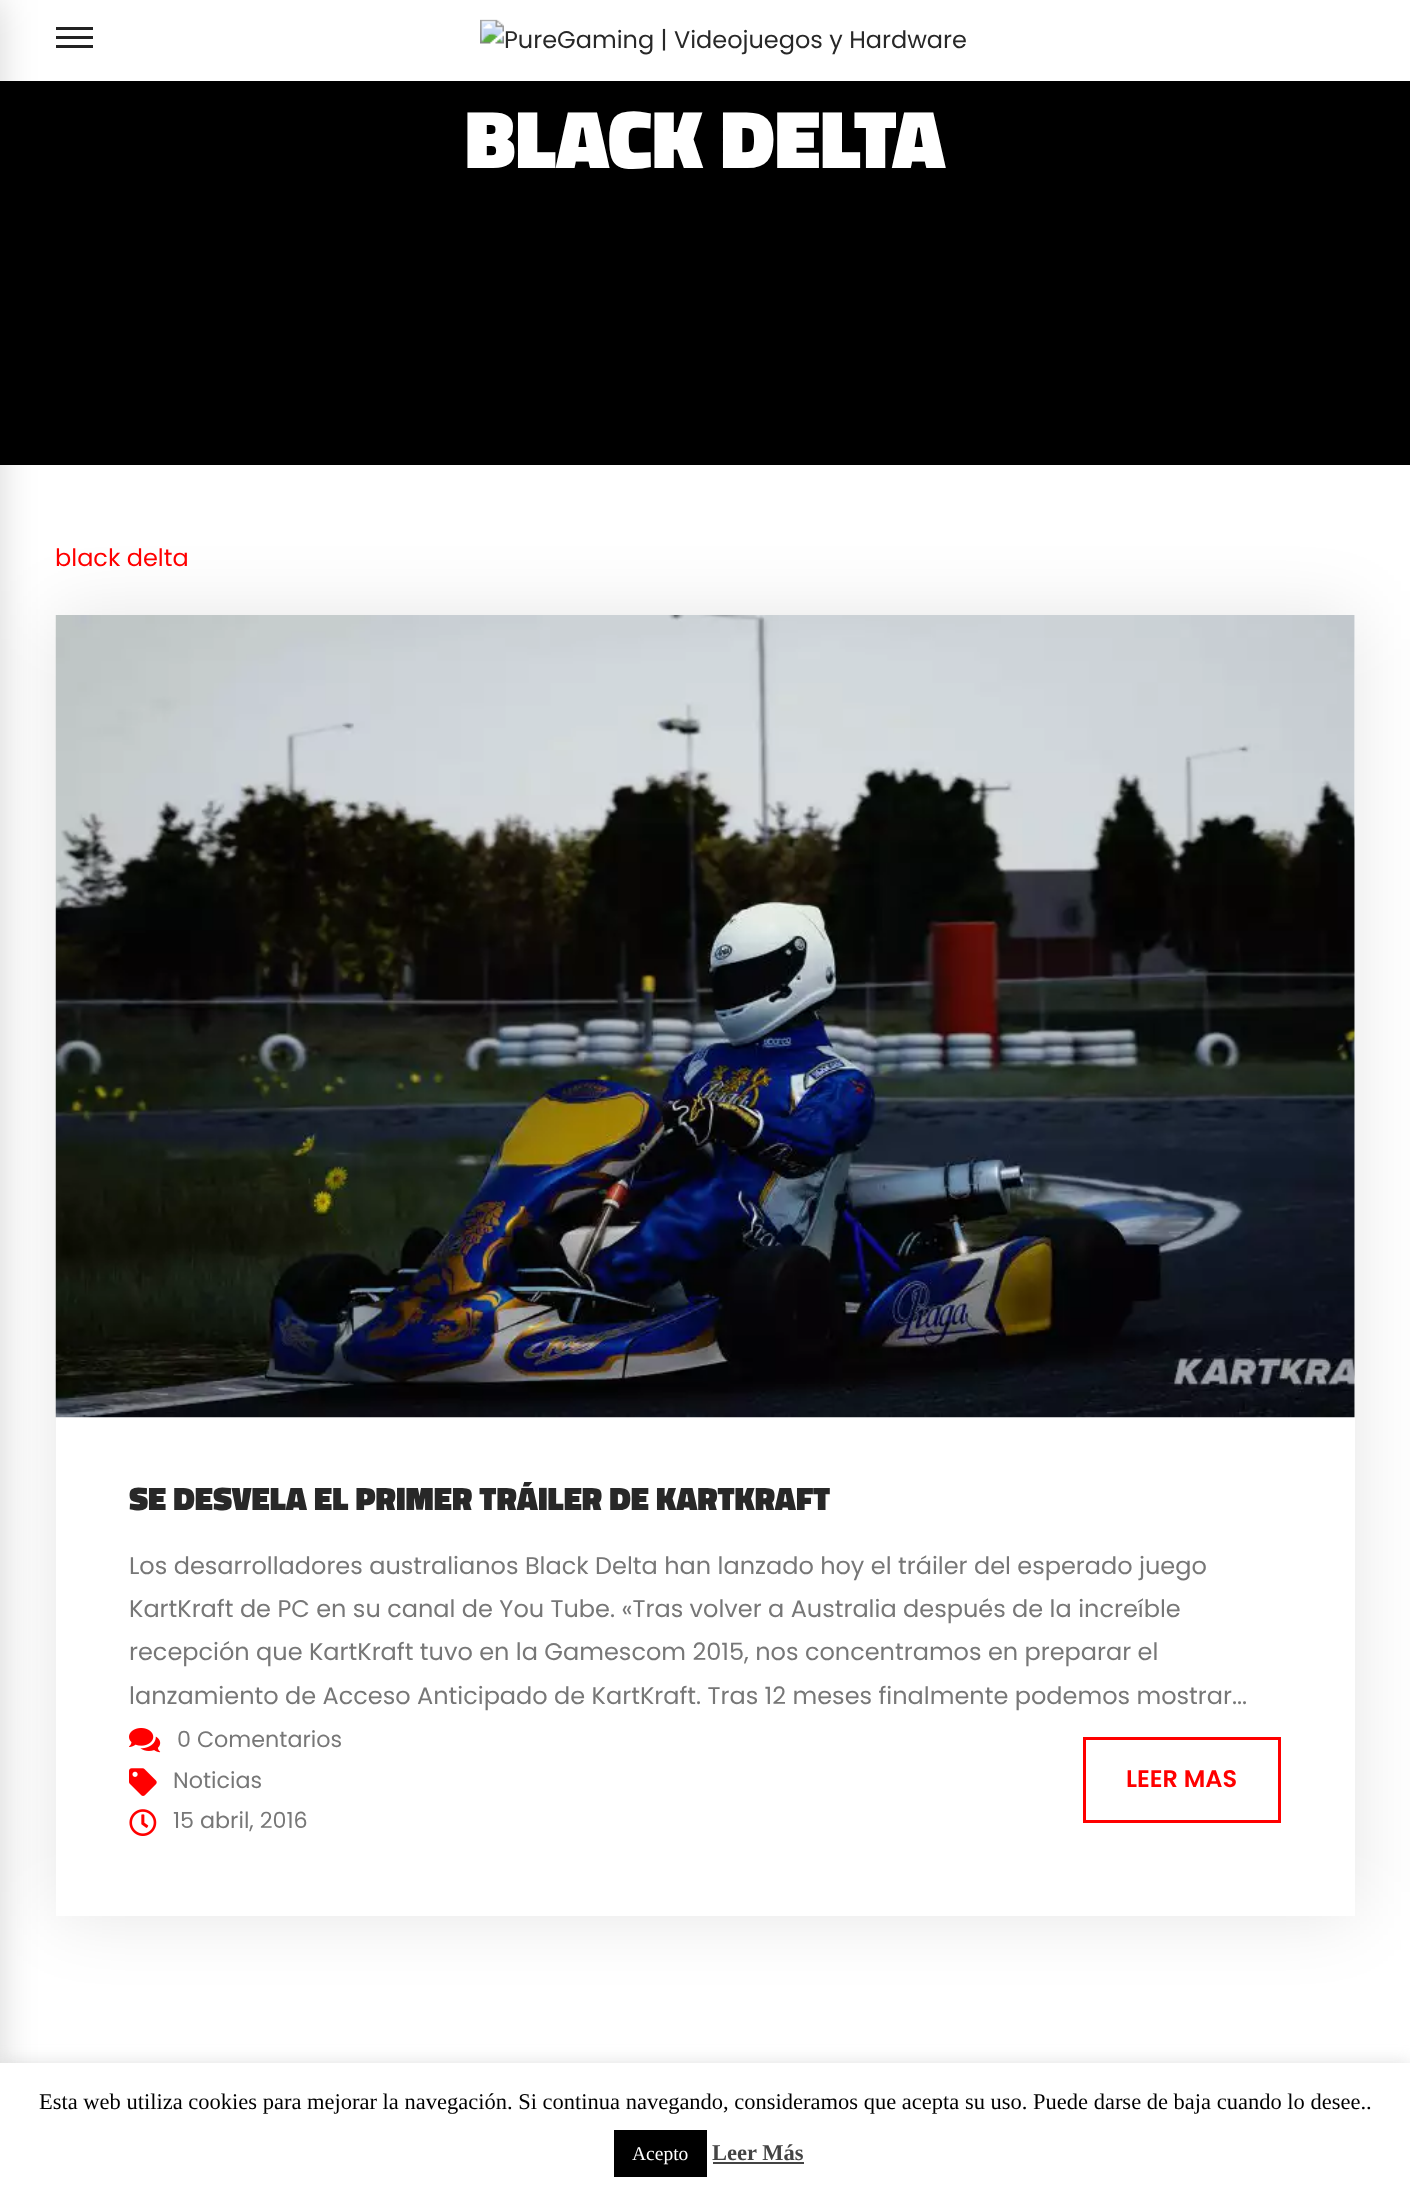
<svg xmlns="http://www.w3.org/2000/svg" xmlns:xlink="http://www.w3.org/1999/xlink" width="1410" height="2194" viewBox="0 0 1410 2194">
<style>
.cls-1{font:900 83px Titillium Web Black;fill:#ffffff}
.cls-2{font:24px Poppins;fill:#ff0000}
.cls-3{font:900 33px Titillium Web Black;fill:#282828}
.cls-4{font:24px Poppins;fill:#777777}
.cls-5{font:22.25px Poppins;fill:#777777}
.cls-6{font:600 24px Poppins;fill:#ff0000}
.cls-7{font:22.5px Liberation Serif;fill:#000000}
.cls-8{font:19.5px Liberation Serif;fill:#ffffff}
.cls-9{font:bold 22.5px Liberation Serif;fill:#444444}
</style>
<defs>
<clipPath id="clip1"><path d="M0 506H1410V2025H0ZM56 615H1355V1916H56Z" clip-rule="evenodd"/></clipPath>
</defs>
<rect width="100%" height="100%" fill="#ffffff"/>
<rect fill="#222222" x="56" y="27" width="37" height="3"/>
<rect fill="#222222" x="56" y="36" width="37" height="3"/>
<rect fill="#222222" x="56" y="45" width="37" height="3"/>
<rect fill="#000000" x="0" y="81" width="1410" height="384"/>
<g clip-path="url(#clip1)">
<rect fill="#000000" fill-opacity="0.1" filter="blur(36px)" x="56" y="615" width="1299" height="1301"/>
</g>
<image xlink:href="image1.png" x="55" y="615" width="1300" height="803"/>
<rect fill="#000000" fill-opacity="0.16" filter="blur(18.5px)" x="-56" y="0" width="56" height="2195"/>
<image xlink:href="image0.png" x="480" y="19" width="486" height="36"/>
<image xlink:href="image2.png" x="129" y="1728" width="32" height="25"/>
<image xlink:href="image3.png" x="129" y="1768" width="28" height="28"/>
<image xlink:href="image4.png" x="129" y="1809" width="28" height="27"/>
<rect fill="none" stroke="#ff0000" stroke-width="3" x="1084.5" y="1738.5" width="195" height="83"/>
<rect fill="#acabab" fill-opacity="0.3" filter="blur(7.5px)" x="0" y="2061" width="1410" height="132"/>
<rect fill="#ffffff" x="0" y="2063" width="1410" height="131"/>
<rect fill="#000000" x="614" y="2130" width="93" height="47"/>
<rect fill="#444444" x="713" y="2162" width="91" height="2"/>
<text class="cls-1" x="465" y="168">BLACK DELTA</text>
<text class="cls-2" x="55" y="566">black delta</text>
<text class="cls-3" x="129" y="1510">SE DESVELA EL PRIMER TRÁILER DE KARTKRAFT</text>
<text class="cls-4"><tspan x="129" y="1574">Los desarrolladores australianos Black Delta han lanzado hoy el tráiler del esperado juego</tspan><tspan x="129" y="1617">KartKraft de PC en su canal de You Tube. «Tras volver a Australia después de la increíble</tspan><tspan x="129" y="1660">recepción que KartKraft tuvo en la Gamescom 2015, nos concentramos en preparar el</tspan><tspan x="129" y="1704">lanzamiento de Acceso Anticipado de KartKraft. Tras 12 meses finalmente podemos mostrar...</tspan></text>
<text class="cls-5" x="177" y="1747">0 Comentarios</text>
<text class="cls-5"><tspan x="173" y="1788">Noticias</tspan><tspan x="173" y="1828">15 abril, 2016</tspan></text>
<text class="cls-6" x="1126" y="1787">LEER MAS</text>
<text class="cls-7" x="39" y="2109">Esta web utiliza cookies para mejorar la navegación. Si continua navegando, consideramos que acepta su uso. Puede darse de baja cuando lo desee..</text>
<text class="cls-8" x="632" y="2160">Acepto</text>
<text class="cls-9" x="712" y="2160">Leer Más</text>
</svg>
